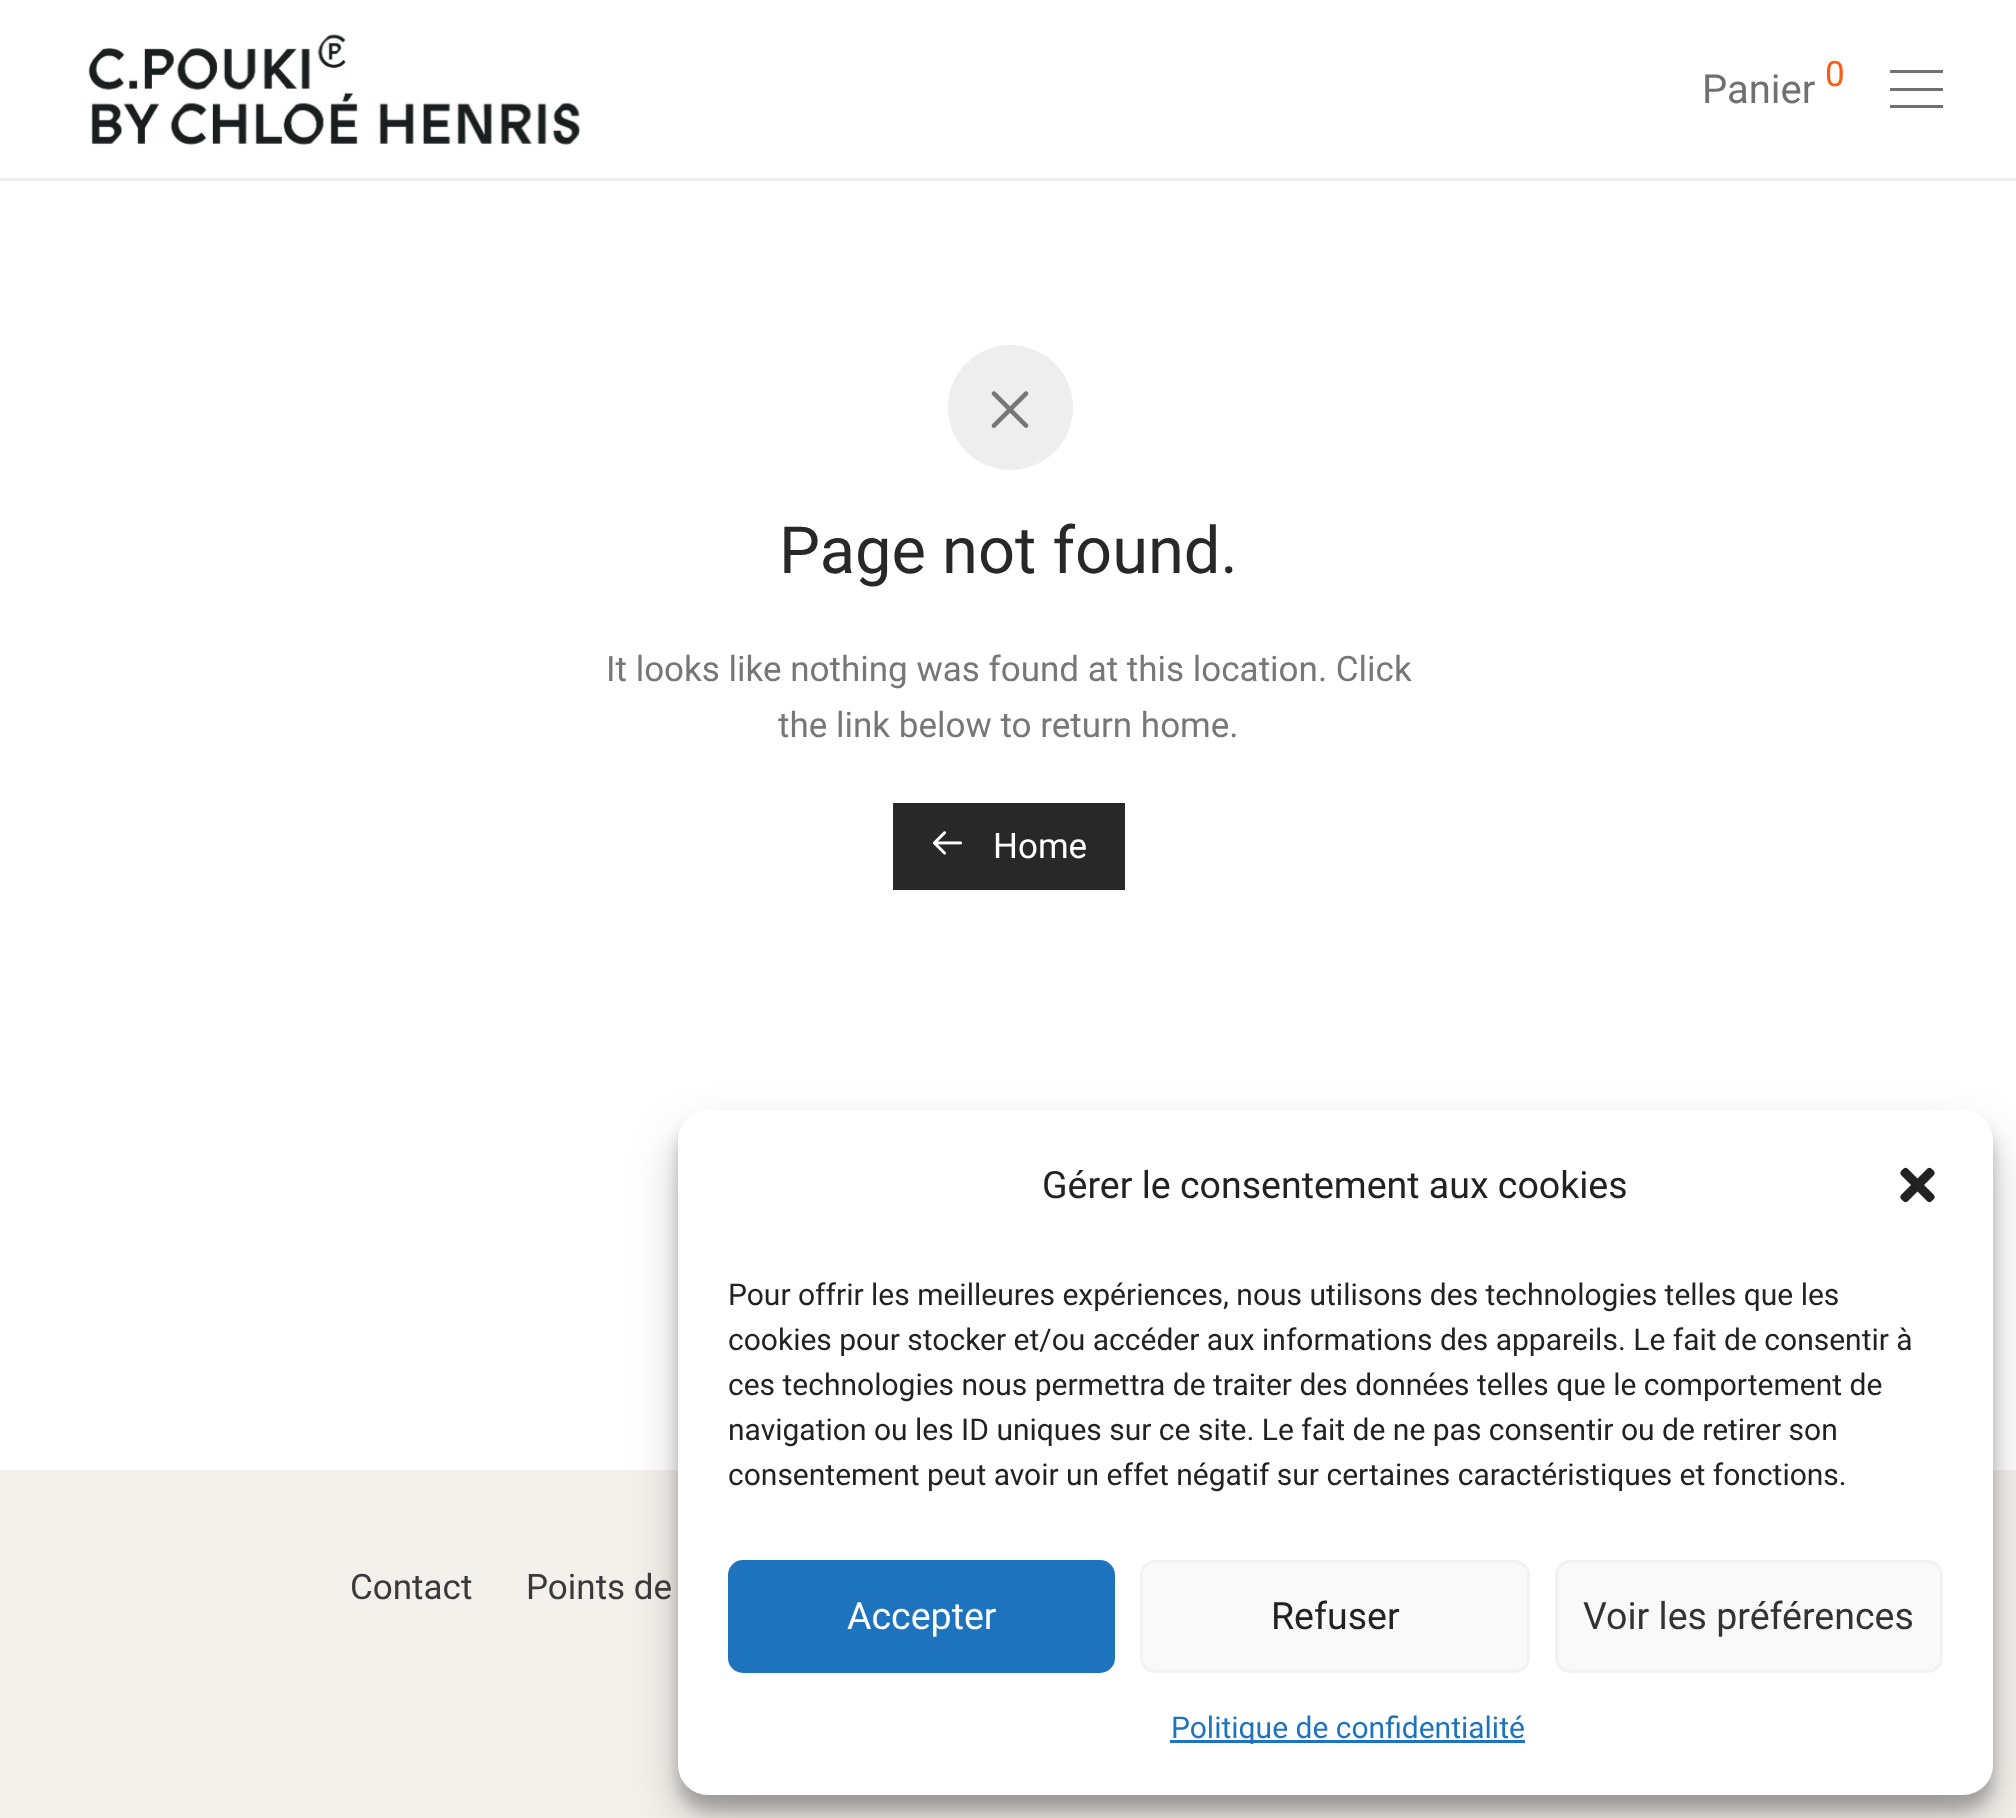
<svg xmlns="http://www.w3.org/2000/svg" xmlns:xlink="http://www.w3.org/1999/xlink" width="2016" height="1818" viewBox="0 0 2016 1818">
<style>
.cls-1{font:40px Roboto;fill:#707070}
.cls-2{font:35px Roboto;fill:#ff5a14}
.cls-3{font:65px Roboto;fill:#282828}
.cls-4{font:35px Roboto;fill:#777777}
.cls-5{font:35px Roboto;fill:#ffffff}
.cls-6{font:35px Roboto;fill:#3a3a3a}
.cls-7{font:37.5px Roboto;fill:#222222}
.cls-8{font:30px Roboto;fill:#222222}
.cls-9{font:37.5px Roboto;fill:#ffffff}
.cls-10{font:37.5px Roboto;fill:#333333}
.cls-11{font:30px Roboto;fill:#1e73be}
</style>
<rect width="100%" height="100%" fill="#ffffff"/>
<rect fill="#eeeeee" x="0" y="178" width="2016" height="3"/>
<image xlink:href="image0.png" x="88" y="34" width="492" height="111"/>
<rect fill="#707070" x="1890" y="70" width="53" height="3"/>
<rect fill="#707070" x="1890" y="88" width="53" height="3"/>
<rect fill="#707070" x="1890" y="105" width="53" height="3"/>
<circle fill="#eeeeee" cx="1010.5" cy="407.5" r="62.5"/>
<image xlink:href="image1.png" x="991" y="391" width="38" height="37"/>
<rect fill="#282828" x="893" y="803" width="232" height="87"/>
<image xlink:href="image2.png" x="932" y="831" width="31" height="24"/>
<rect fill="#f4f0ec" x="0" y="1470" width="2016" height="348"/>
<rect fill="#000000" fill-opacity="0.23" filter="blur(7.5px)" x="678" y="1125" width="1315" height="685" rx="30"/>
<rect fill="#000000" fill-opacity="0.19" filter="blur(25px)" x="678" y="1135" width="1315" height="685" rx="30"/>
<rect fill="#ffffff" x="678" y="1110" width="1315" height="685" rx="30"/>
<image xlink:href="image3.png" x="1900" y="1167" width="35" height="36"/>
<rect fill="#1e73be" stroke="#1e73be" stroke-width="3" x="729.5" y="1561.5" width="384" height="110" rx="13.5"/>
<rect fill="#f9f9f9" stroke="#f2f2f2" stroke-width="3" x="1141.5" y="1561.5" width="387" height="110" rx="13.5"/>
<rect fill="#f9f9f9" stroke="#f2f2f2" stroke-width="3" x="1556.5" y="1561.5" width="385" height="110" rx="13.5"/>
<rect fill="#1e73be" x="1170" y="1740" width="355" height="3"/>
<text class="cls-1" x="1702" y="103">Panier</text>
<text class="cls-2" x="1825" y="86">0</text>
<text class="cls-3" x="779" y="573">Page not found.</text>
<text class="cls-4" x="606" y="681">It looks like nothing was found at this location. Click</text>
<text class="cls-4" x="778" y="737">the link below to return home.</text>
<text class="cls-5" x="993" y="858">Home</text>
<text class="cls-6" x="350" y="1599">Contact</text>
<text class="cls-6" x="526" y="1599">Points de</text>
<text class="cls-7" x="1042" y="1198">Gérer le consentement aux cookies</text>
<text class="cls-8"><tspan x="728" y="1305">Pour offrir les meilleures expériences, nous utilisons des technologies telles que les</tspan><tspan x="728" y="1350">cookies pour stocker et/ou accéder aux informations des appareils. Le fait de consentir à</tspan><tspan x="728" y="1395">ces technologies nous permettra de traiter des données telles que le comportement de</tspan><tspan x="728" y="1440">navigation ou les ID uniques sur ce site. Le fait de ne pas consentir ou de retirer son</tspan><tspan x="728" y="1485">consentement peut avoir un effet négatif sur certaines caractéristiques et fonctions.</tspan></text>
<text class="cls-9" x="847" y="1629">Accepter</text>
<text class="cls-7" x="1271" y="1629">Refuser</text>
<text class="cls-10" x="1583" y="1629">Voir les préférences</text>
<text class="cls-11" x="1171" y="1738">Politique de confidentialité</text>
</svg>
